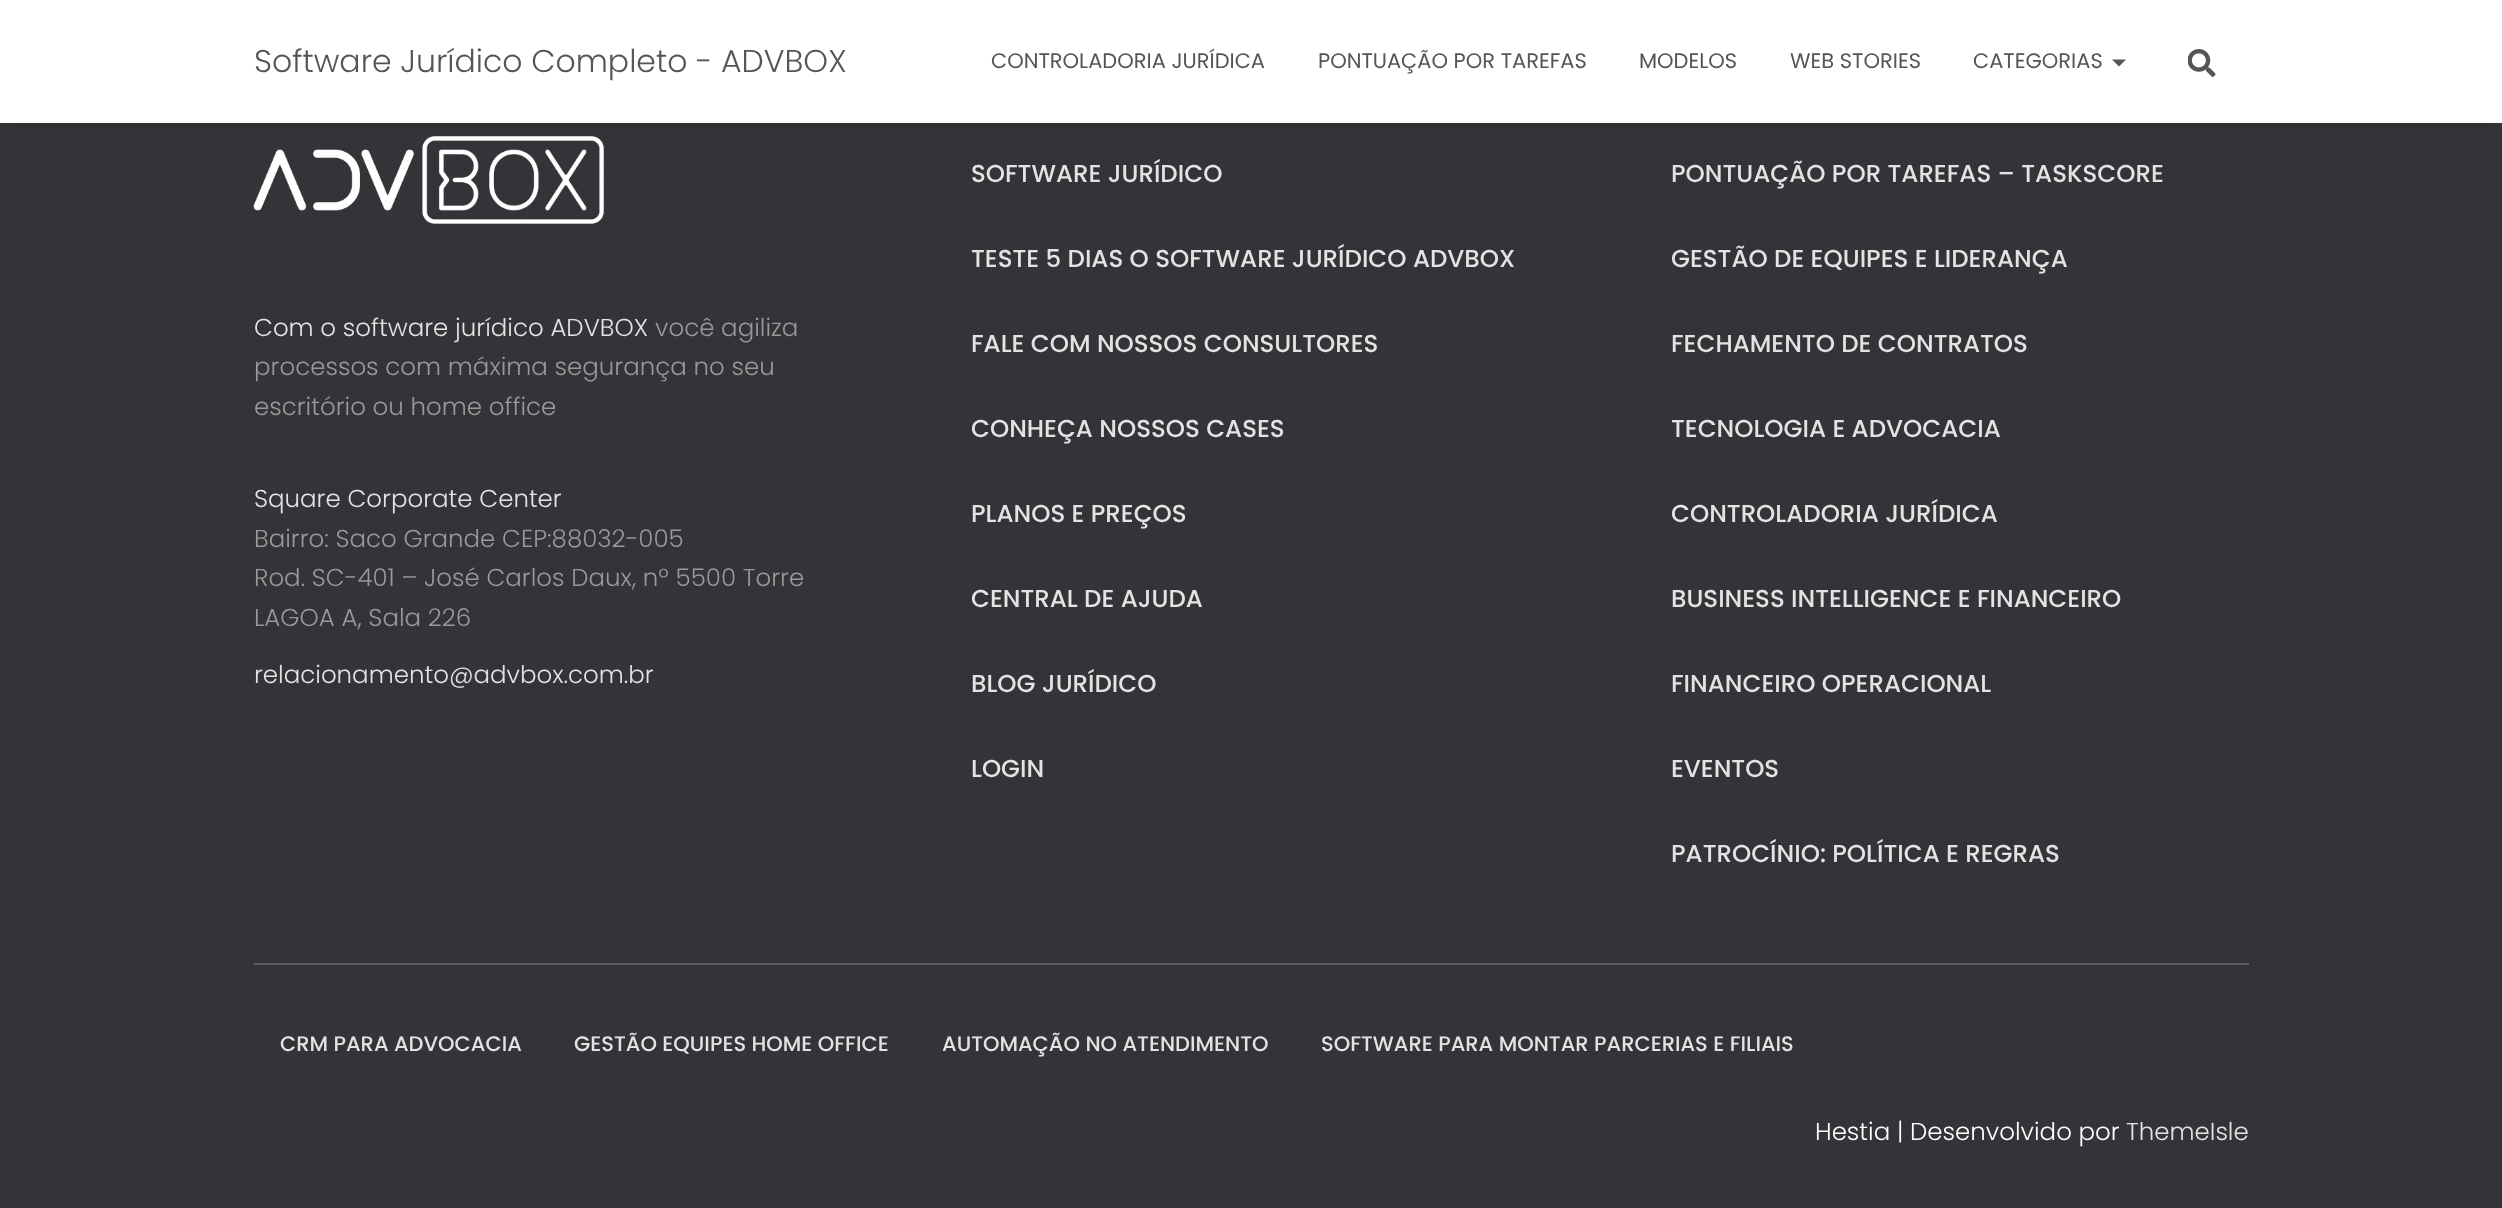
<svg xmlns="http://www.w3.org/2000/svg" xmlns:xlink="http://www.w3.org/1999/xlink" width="2502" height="1208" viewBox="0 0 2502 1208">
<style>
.cls-1{font:300 31.5px Poppins;fill:#555555}
.cls-2{font:21px Poppins;fill:#555555}
.cls-3{font:300 24.5px Poppins;fill:#e2e3e3}
.cls-4{font:300 24.5px Poppins;fill:#999999}
.cls-5{font:500 24.5px Poppins;fill:#e2e3e3}
.cls-6{font:500 21px Poppins;fill:#e2e3e3}
.cls-7{font:300 24.5px Poppins;fill:#ffffff}
</style>
<rect width="100%" height="100%" fill="#323437"/>
<image xlink:href="image1.png" x="253" y="136" width="351" height="88"/>
<rect fill="#000000" fill-opacity="0.42" filter="blur(9px)" x="11" y="12" width="2481" height="102"/>
<rect fill="#ffffff" x="0" y="0" width="2502" height="123"/>
<path fill="#555555" d="M2112 59.5H2126L2119 66.5Z"/>
<image xlink:href="image0.png" x="2188" y="49" width="28" height="28"/>
<rect fill="#5b5d5f" x="254" y="963" width="1995" height="2"/>
<text class="cls-1" x="254" y="72">Software Jurídico Completo - ADVBOX</text>
<text class="cls-2" x="991" y="68">CONTROLADORIA JURÍDICA</text>
<text class="cls-2" x="1318" y="68">PONTUAÇÃO POR TAREFAS</text>
<text class="cls-2" x="1639" y="68">MODELOS</text>
<text class="cls-2" x="1790" y="68">WEB STORIES</text>
<text class="cls-2" x="1973" y="68">CATEGORIAS</text>
<text class="cls-3" x="254" y="336">Com o software jurídico ADVBOX</text>
<text class="cls-4" x="655" y="336">você agiliza</text>
<text class="cls-4"><tspan x="254" y="375">processos com máxima segurança no seu</tspan><tspan x="254" y="415">escritório ou home office</tspan></text>
<text class="cls-3" x="254" y="507">Square Corporate Center</text>
<text class="cls-4"><tspan x="254" y="547">Bairro: Saco Grande CEP:88032-005</tspan><tspan x="254" y="586">Rod. SC-401 – José Carlos Daux, nº 5500 Torre</tspan><tspan x="254" y="626">LAGOA A, Sala 226</tspan></text>
<text class="cls-3" x="254" y="683">relacionamento@advbox.com.br</text>
<text class="cls-5" x="971" y="182">SOFTWARE JURÍDICO</text>
<text class="cls-5" x="971" y="267">TESTE 5 DIAS O SOFTWARE JURÍDICO ADVBOX</text>
<text class="cls-5" x="971" y="352">FALE COM NOSSOS CONSULTORES</text>
<text class="cls-5" x="971" y="437">CONHEÇA NOSSOS CASES</text>
<text class="cls-5" x="971" y="522">PLANOS E PREÇOS</text>
<text class="cls-5" x="971" y="607">CENTRAL DE AJUDA</text>
<text class="cls-5" x="971" y="692">BLOG JURÍDICO</text>
<text class="cls-5" x="971" y="777">LOGIN</text>
<text class="cls-5" x="1671" y="182">PONTUAÇÃO POR TAREFAS – TASKSCORE</text>
<text class="cls-5" x="1671" y="267">GESTÃO DE EQUIPES E LIDERANÇA</text>
<text class="cls-5" x="1671" y="352">FECHAMENTO DE CONTRATOS</text>
<text class="cls-5" x="1671" y="437">TECNOLOGIA E ADVOCACIA</text>
<text class="cls-5" x="1671" y="522">CONTROLADORIA JURÍDICA</text>
<text class="cls-5" x="1671" y="607">BUSINESS INTELLIGENCE E FINANCEIRO</text>
<text class="cls-5" x="1671" y="692">FINANCEIRO OPERACIONAL</text>
<text class="cls-5" x="1671" y="777">EVENTOS</text>
<text class="cls-5" x="1671" y="862">PATROCÍNIO: POLÍTICA E REGRAS</text>
<text class="cls-6" x="280" y="1051">CRM PARA ADVOCACIA</text>
<text class="cls-6" x="574" y="1051">GESTÃO EQUIPES HOME OFFICE</text>
<text class="cls-6" x="942" y="1051">AUTOMAÇÃO NO ATENDIMENTO</text>
<text class="cls-6" x="1321" y="1051">SOFTWARE PARA MONTAR PARCERIAS E FILIAIS</text>
<text class="cls-7" x="1815" y="1140">Hestia | Desenvolvido por</text>
<text class="cls-3" x="2126" y="1140">ThemeIsle</text>
</svg>
